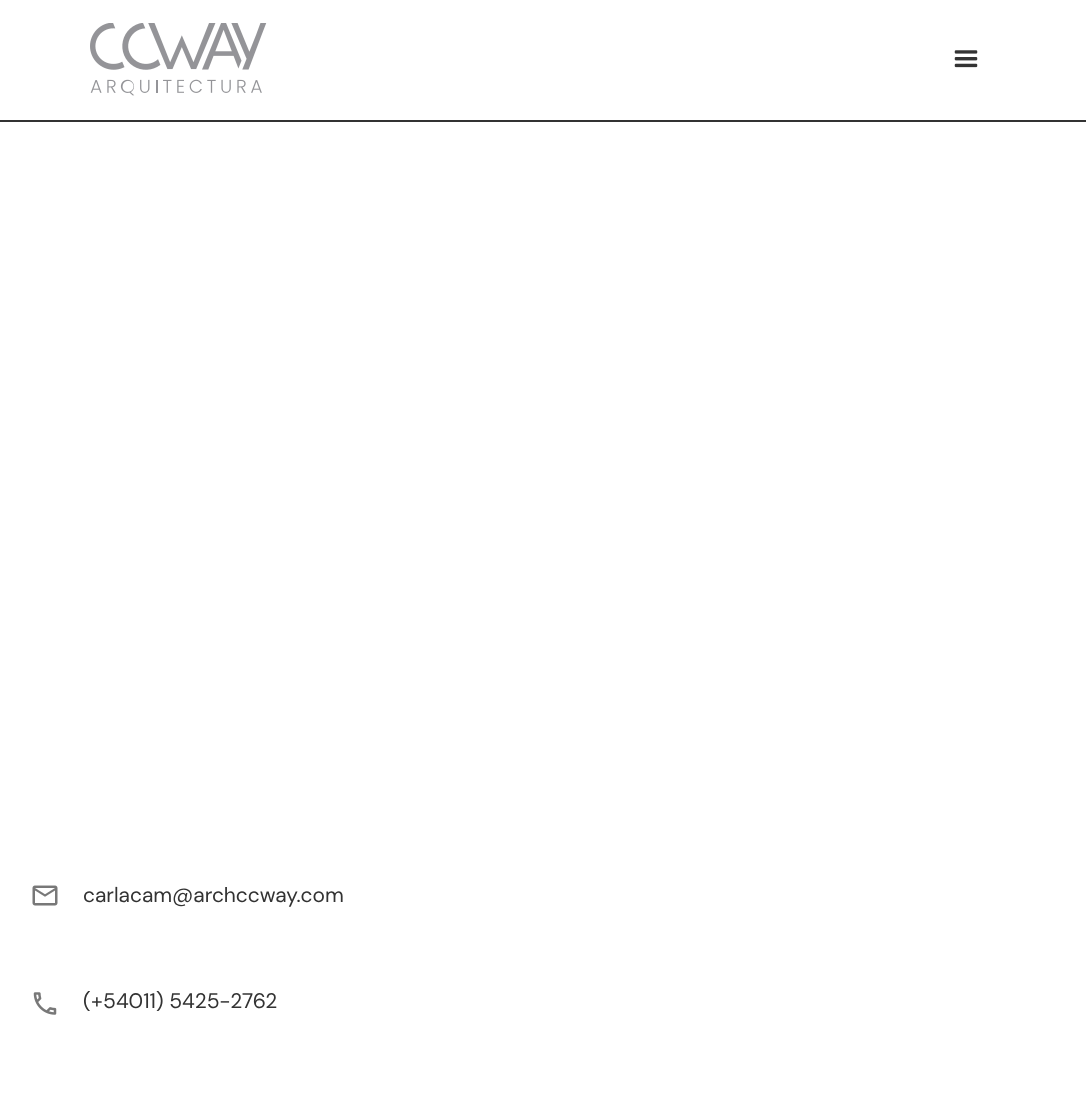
<svg xmlns="http://www.w3.org/2000/svg" xmlns:xlink="http://www.w3.org/1999/xlink" width="1086" height="1094" viewBox="0 0 1086 1094">
<style>
.cls-1{font:21px DM Sans;fill:#333333}
</style>
<rect width="100%" height="100%" fill="#ffffff"/>
<rect fill="#333333" x="0" y="120" width="1086" height="2"/>
<image xlink:href="image0.png" x="90" y="23" width="177" height="73"/>
<image xlink:href="image1.png" x="954" y="50" width="24" height="18"/>
<image xlink:href="image2.png" x="32" y="885" width="26" height="21"/>
<image xlink:href="image3.png" x="33" y="992" width="24" height="23"/>
<text class="cls-1" x="83" y="902">carlacam@archccway.com</text>
<text class="cls-1" x="83" y="1008">(+54011) 5425-2762</text>
</svg>
